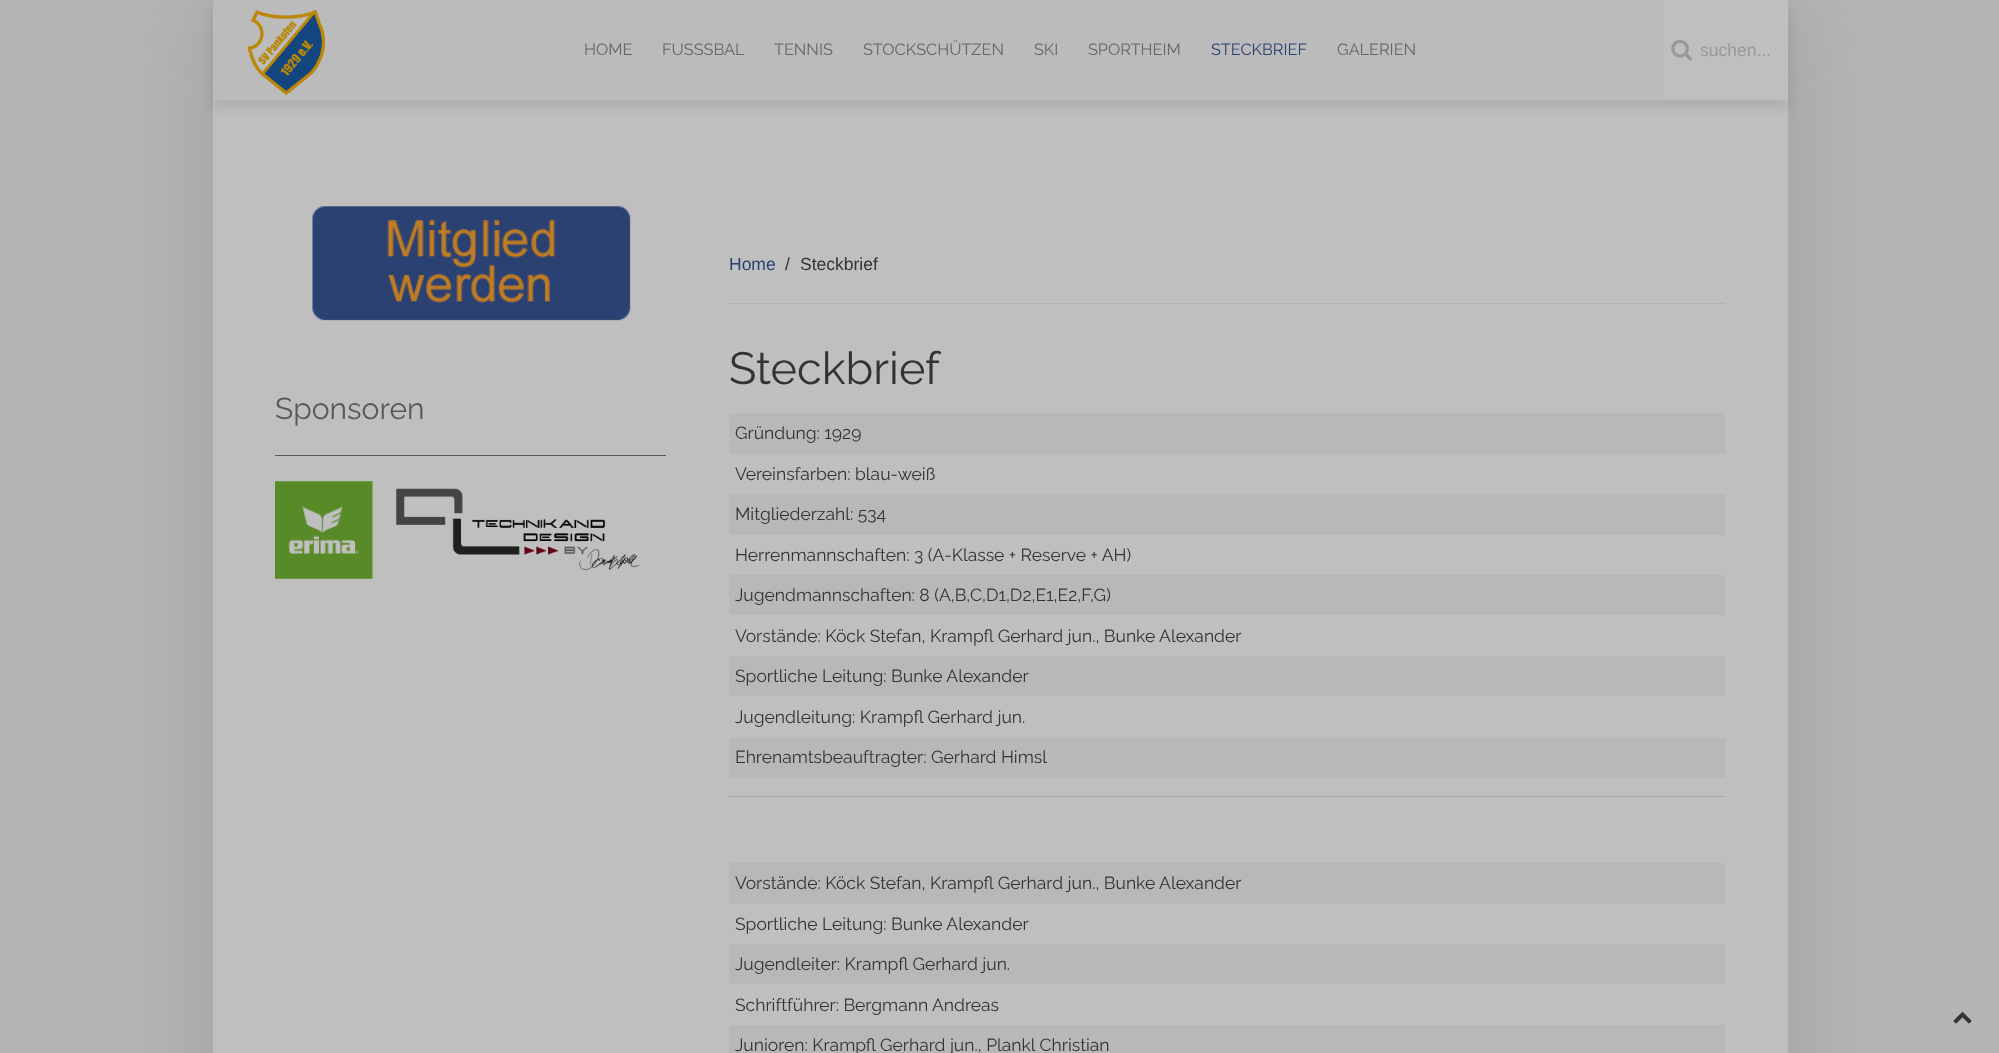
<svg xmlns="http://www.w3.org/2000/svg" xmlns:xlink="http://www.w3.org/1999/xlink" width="1999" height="1053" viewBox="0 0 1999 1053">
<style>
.cls-1{font:100 16.25px Raleway;fill:#666666}
.cls-2{font:100 16.25px Raleway;fill:#2a4171}
.cls-3{font:17.5px Liberation Sans;fill:#999999}
.cls-4{font:100 30px Raleway;fill:#595959}
.cls-5{font:17.5px Liberation Sans;fill:#2a4171}
.cls-6{font:17.5px Liberation Sans;fill:#333333}
.cls-7{font:100 45px Raleway;fill:#333333}
.cls-8{font:100 17.5px Raleway;fill:#333333}
</style>
<rect width="100%" height="100%" fill="#b5b5b5"/>
<rect fill="#666666" fill-opacity="0.29" filter="blur(50px)" x="213" y="0" width="1575" height="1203"/>
<rect fill="#bfbfbf" x="213" y="100" width="1575" height="953"/>
<rect fill="#000000" fill-opacity="0.09" filter="blur(6px)" x="213" y="8" width="1575" height="100"/>
<rect fill="#bbbbbb" x="213" y="0" width="1450" height="100"/>
<image xlink:href="image0.png" x="247" y="10" width="78" height="85"/>
<rect fill="#bfbfbf" x="1663" y="0" width="125" height="100"/>
<image xlink:href="image1.png" x="1671" y="39" width="21" height="22"/>
<image xlink:href="image2.png" x="312" y="206" width="319" height="115"/>
<rect fill="#595959" x="275" y="455" width="391" height="1"/>
<image xlink:href="image3.png" x="275" y="481" width="98" height="98"/>
<image xlink:href="image4.png" x="396" y="488" width="244" height="82"/>
<rect fill="#b2b2b2" x="729" y="303" width="996" height="1"/>
<rect fill="#b8b8b8" x="729" y="413" width="996" height="41"/>
<rect fill="#b8b8b8" x="729" y="494" width="996" height="41"/>
<rect fill="#b8b8b8" x="729" y="575" width="996" height="40"/>
<rect fill="#b8b8b8" x="729" y="656" width="996" height="40"/>
<rect fill="#b8b8b8" x="729" y="738" width="996" height="40"/>
<rect fill="#a6a6a6" x="729" y="796" width="996" height="1"/>
<rect fill="#b8b8b8" x="729" y="863" width="996" height="41"/>
<rect fill="#b8b8b8" x="729" y="944" width="996" height="40"/>
<rect fill="#b8b8b8" x="729" y="1025" width="996" height="28"/>
<image xlink:href="image5.png" x="1953" y="1012" width="19" height="12"/>
<text class="cls-1" x="584" y="55">HOME</text>
<text class="cls-1" x="662" y="55">FUSSSBAL</text>
<text class="cls-1" x="774" y="55">TENNIS</text>
<text class="cls-1" x="863" y="55">STOCKSCHÜTZEN</text>
<text class="cls-1" x="1034" y="55">SKI</text>
<text class="cls-1" x="1088" y="55">SPORTHEIM</text>
<text class="cls-2" x="1211" y="55">STECKBRIEF</text>
<text class="cls-1" x="1337" y="55">GALERIEN</text>
<text class="cls-3" x="1700" y="56">suchen...</text>
<text class="cls-4" x="275" y="419">Sponsoren</text>
<text class="cls-5" x="729" y="270">Home</text>
<text class="cls-6" x="785" y="270">/</text>
<text class="cls-6" x="800" y="270">Steckbrief</text>
<text class="cls-7" x="729" y="384">Steckbrief</text>
<text class="cls-8" x="735" y="439">Gründung: 1929</text>
<text class="cls-8" x="735" y="480">Vereinsfarben: blau-weiß</text>
<text class="cls-8" x="735" y="520">Mitgliederzahl: 534</text>
<text class="cls-8" x="735" y="561">Herrenmannschaften: 3 (A-Klasse + Reserve + AH)</text>
<text class="cls-8" x="735" y="601">Jugendmannschaften: 8 (A,B,C,D1,D2,E1,E2,F,G)</text>
<text class="cls-8" x="735" y="642">Vorstände: Köck Stefan, Krampfl Gerhard jun., Bunke Alexander</text>
<text class="cls-8" x="735" y="682">Sportliche Leitung: Bunke Alexander</text>
<text class="cls-8" x="735" y="723">Jugendleitung: Krampfl Gerhard jun.</text>
<text class="cls-8" x="735" y="763">Ehrenamtsbeauftragter: Gerhard Himsl</text>
<text class="cls-8" x="735" y="889">Vorstände: Köck Stefan, Krampfl Gerhard jun., Bunke Alexander</text>
<text class="cls-8" x="735" y="930">Sportliche Leitung: Bunke Alexander</text>
<text class="cls-8" x="735" y="970">Jugendleiter: Krampfl Gerhard jun.</text>
<text class="cls-8" x="735" y="1011">Schriftführer: Bergmann Andreas</text>
<text class="cls-8" x="735" y="1051">Junioren: Krampfl Gerhard jun., Plankl Christian</text>
</svg>
